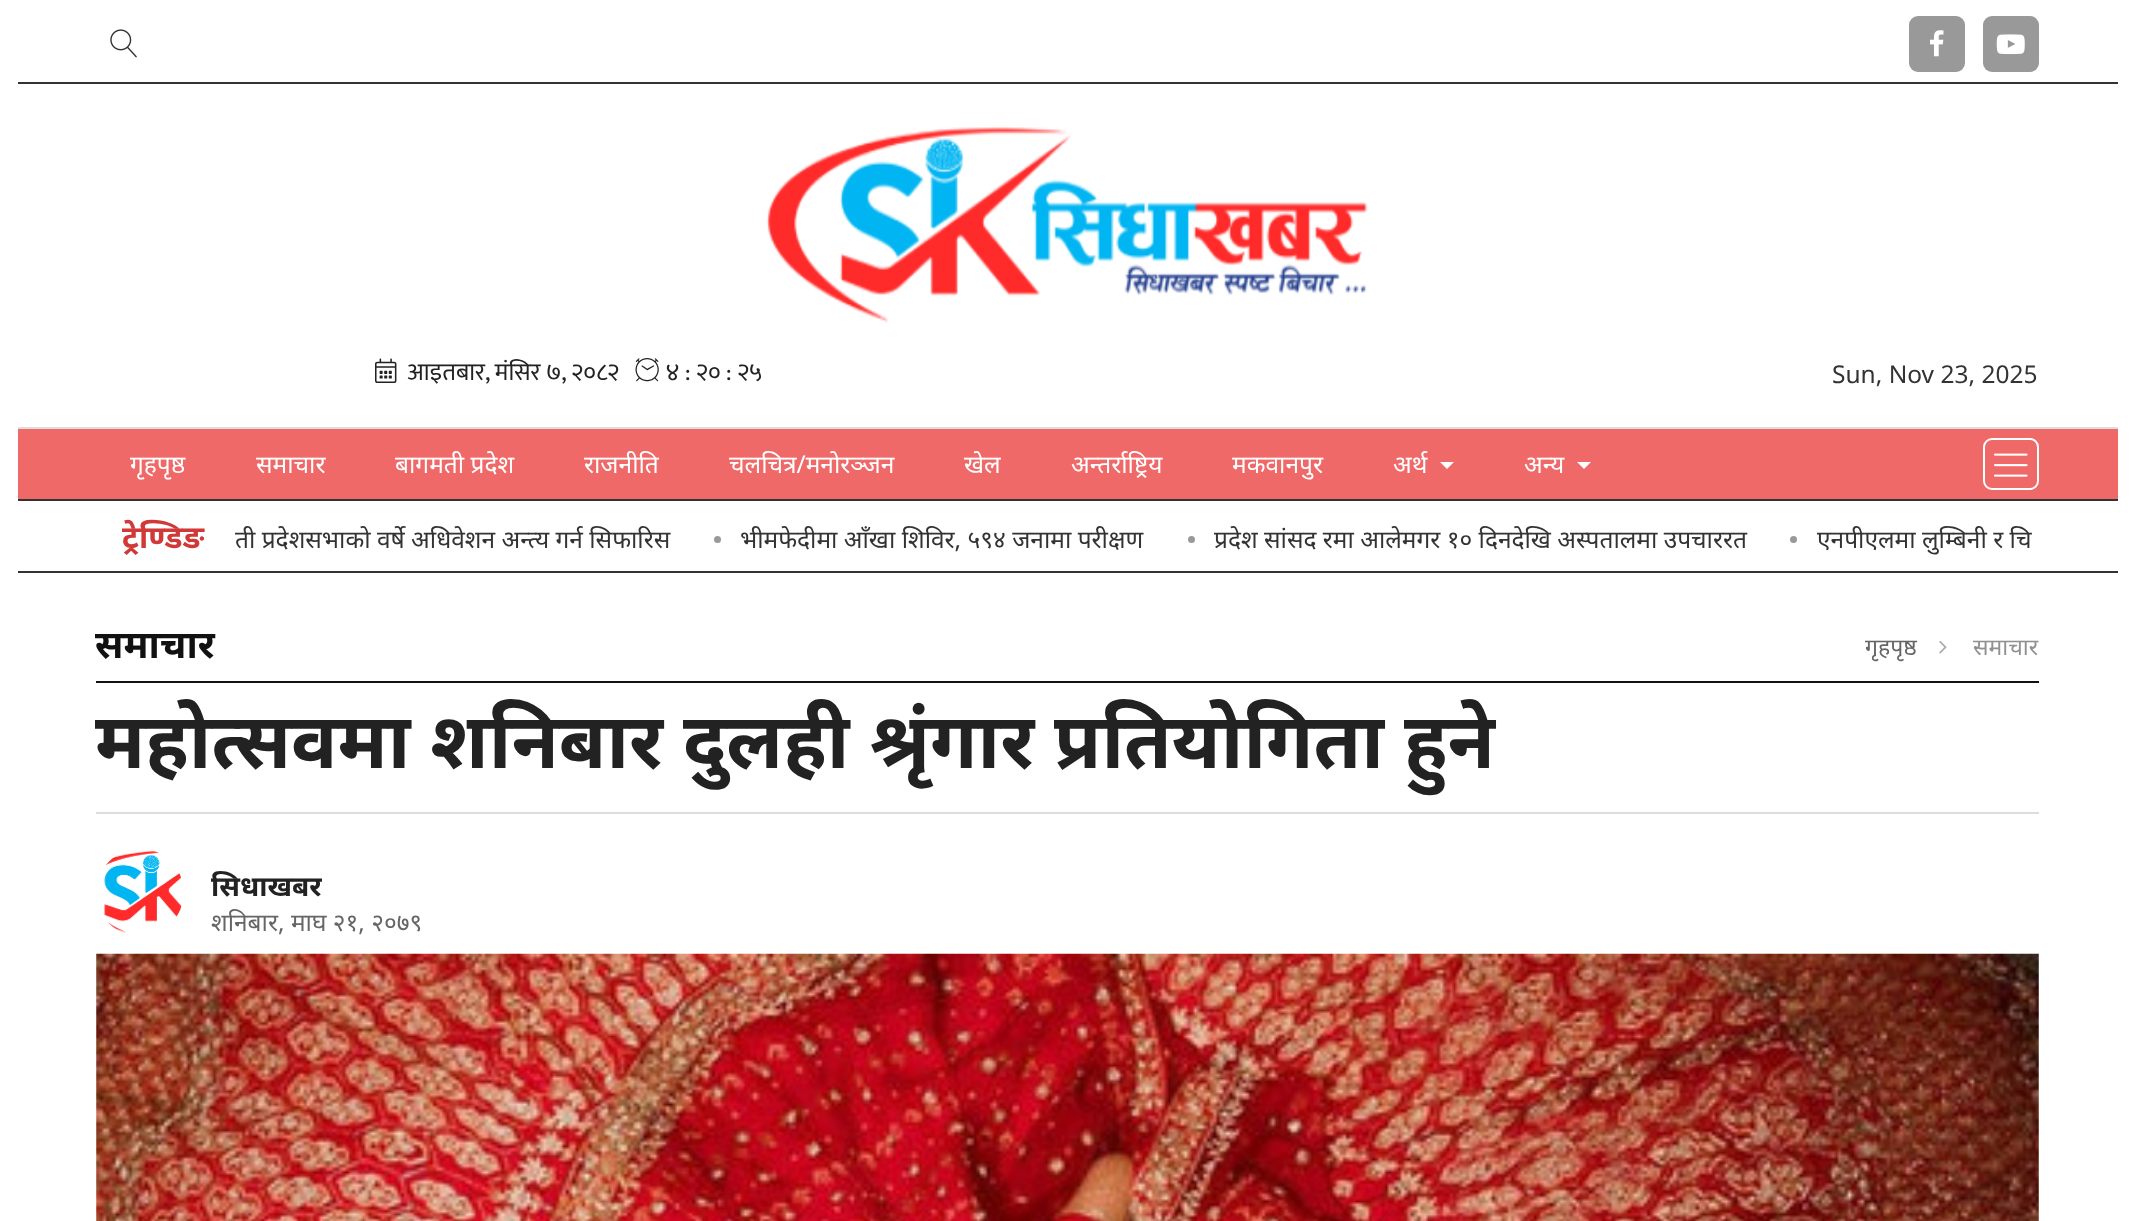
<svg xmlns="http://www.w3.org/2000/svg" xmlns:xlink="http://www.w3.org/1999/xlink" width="2132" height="1221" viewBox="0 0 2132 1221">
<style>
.cls-1{font:24.5px Noto Sans;fill:#333333}
.cls-2{font:24.5px Noto Sans;fill:#ffffff}
.cls-3{font:bold 31.5px Noto Sans;fill:#d13938}
.cls-4{font:bold 38.5px Noto Sans;fill:#111111}
.cls-5{font:23px Noto Sans;fill:#666666}
.cls-6{font:23px Noto Sans;fill:#918f8f}
.cls-7{font:bold 77px Noto Sans;fill:#222222}
.cls-8{font:bold 28px Noto Sans;fill:#222222}
.cls-9{font:24.5px Noto Sans;fill:#666666}
</style>
<defs>
<clipPath id="clip1"><rect x="231" y="506" width="457" height="66"/></clipPath>
</defs>
<rect width="100%" height="100%" fill="#ffffff"/>
<rect fill="#333333" x="18" y="82" width="2100" height="2"/>
<image xlink:href="image0.png" x="110" y="29" width="27" height="29"/>
<rect fill="#999999" x="1909" y="16" width="56" height="56" rx="9"/>
<image xlink:href="image1.png" x="1930" y="30" width="14" height="27"/>
<rect fill="#999999" x="1983" y="16" width="56" height="56" rx="9"/>
<image xlink:href="image2.png" x="1996" y="34" width="29" height="21"/>
<image xlink:href="image3.png" x="766" y="126" width="602" height="197"/>
<image xlink:href="image4.png" x="375" y="358" width="386" height="26"/>
<rect fill="#f06969" x="18" y="429" width="2100" height="70"/>
<rect fill="#dddddd" x="18" y="427" width="2100" height="2"/>
<rect fill="#333333" x="18" y="499" width="2100" height="2"/>
<path fill="#ffffff" d="M1440 462H1454L1447 469Z"/>
<path fill="#ffffff" d="M1577 462H1591L1584 469Z"/>
<rect fill="none" stroke="#ffffff" stroke-width="2" x="1984" y="439" width="54" height="50" rx="8"/>
<image xlink:href="image5.png" x="1994" y="453" width="34" height="24"/>
<rect fill="#333333" x="18" y="571" width="2100" height="2"/>
<circle fill="#999999" cx="717.5" cy="539.5" r="3.5"/>
<circle fill="#999999" cx="1191.5" cy="539.5" r="3.5"/>
<circle fill="#999999" cx="1793.5" cy="539.5" r="3.5"/>
<rect fill="#111111" x="96" y="681" width="1943" height="2"/>
<image xlink:href="image6.png" x="1939" y="641" width="8" height="13"/>
<rect fill="#dddddd" x="96" y="812" width="1943" height="2"/>
<image xlink:href="image7.png" x="104" y="850" width="78" height="83"/>
<image xlink:href="image8.png" x="96" y="953" width="1943" height="268"/>
<text class="cls-1" x="1832" y="383">Sun, Nov 23, 2025</text>
<text class="cls-2" x="130" y="473">गृहपृष्ठ</text>
<text class="cls-2" x="256" y="473">समाचार</text>
<text class="cls-2" x="395" y="473">बागमती प्रदेश</text>
<text class="cls-2" x="584" y="473">राजनीति</text>
<text class="cls-2" x="729" y="473">चलचित्र/मनोरञ्जन</text>
<text class="cls-2" x="964" y="473">खेल</text>
<text class="cls-2" x="1071" y="473">अन्तर्राष्ट्रिय</text>
<text class="cls-2" x="1232" y="473">मकवानपुर</text>
<text class="cls-2" x="1393" y="473">अर्थ</text>
<text class="cls-2" x="1524" y="473">अन्य</text>
<text class="cls-3" x="122" y="548">ट्रेण्डिङ</text>
<g clip-path="url(#clip1)">
<text class="cls-1" x="235" y="548">ती प्रदेशसभाको वर्षे अधिवेशन अन्त्य गर्न सिफारिस</text>
</g>
<text class="cls-1" x="740" y="548">भीमफेदीमा आँखा शिविर, ५९४ जनामा परीक्षण</text>
<text class="cls-1" x="1214" y="548">प्रदेश सांसद रमा आलेमगर १० दिनदेखि अस्पतालमा उपचाररत</text>
<text class="cls-1" x="1817" y="548">एनपीएलमा लुम्बिनी र चि</text>
<text class="cls-4" x="95" y="658">समाचार</text>
<text class="cls-5" x="1865" y="655">गृहपृष्ठ</text>
<text class="cls-6" x="1973" y="655">समाचार</text>
<text class="cls-7" x="95" y="768">महोत्सवमा शनिबार दुलही श्रृंगार प्रतियोगिता हुने</text>
<text class="cls-8" x="211" y="896">सिधाखबर</text>
<text class="cls-9" x="211" y="931">शनिबार, माघ २१, २०७९</text>
</svg>
